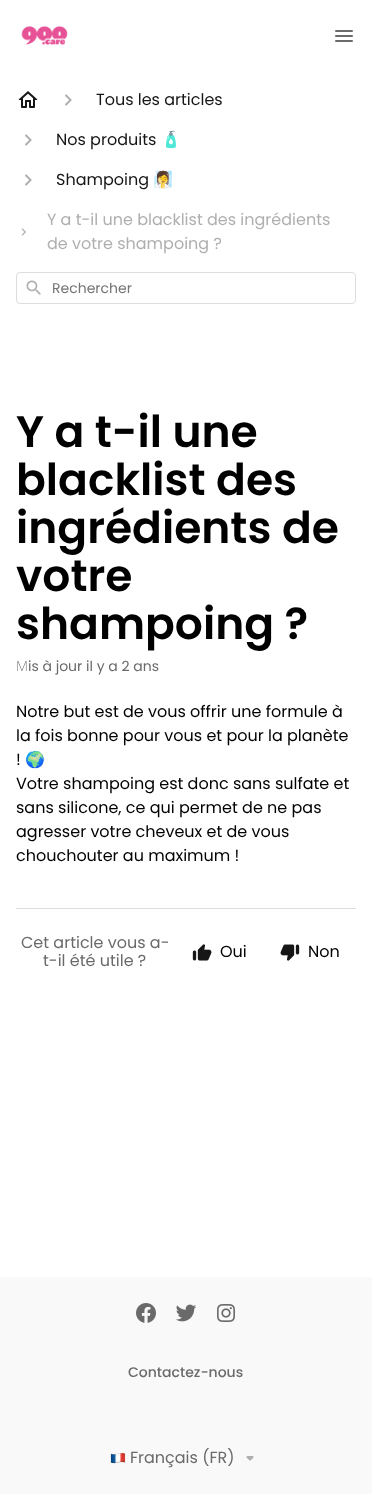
<svg xmlns="http://www.w3.org/2000/svg" xmlns:xlink="http://www.w3.org/1999/xlink" width="372" height="1494" viewBox="0 0 372 1494">
<style>
.cls-1{font:16px Poppins;fill:#161616}
.cls-2{font:16px Noto Color Emoji;fill:#161616}
.cls-3{font:16px Poppins;fill:#afafaf}
.cls-4{font:14px Poppins;fill:#757575}
.cls-5{font:600 44px Poppins;fill:#000000}
.cls-6{font:200 14px Noto Sans;fill:#6a6a6a}
.cls-7{font:14px Poppins;fill:#6a6a6a}
.cls-8{font:16px Poppins;fill:#000000}
.cls-9{font:16px Noto Color Emoji;fill:#000000}
.cls-10{font:16px Poppins;fill:#6a6a6a}
.cls-11{font:500 14px Poppins;fill:#6a6a6a}
</style>
<rect width="100%" height="100%" fill="#ffffff"/>
<image xlink:href="image0.png" x="21" y="26" width="47" height="19"/>
<image xlink:href="image1.png" x="335" y="30" width="18" height="12"/>
<image xlink:href="image2.png" x="18" y="91" width="20" height="17"/>
<image xlink:href="image3.png" x="65" y="94" width="7" height="12"/>
<image xlink:href="image3.png" x="25" y="134" width="7" height="12"/>
<image xlink:href="image3.png" x="25" y="174" width="7" height="12"/>
<image xlink:href="image4.png" x="21" y="228" width="5" height="8"/>
<rect fill="none" stroke="#dddddd" x="16.5" y="272.5" width="339" height="31" rx="3.5"/>
<image xlink:href="image5.png" x="26" y="280" width="15" height="15"/>
<rect fill="#dddddd" x="16" y="908" width="340" height="1"/>
<image xlink:href="image6.png" x="192" y="944" width="20" height="17"/>
<image xlink:href="image7.png" x="280" y="944" width="20" height="17"/>
<rect fill="#f9f9f9" x="0" y="1277" width="372" height="217"/>
<image xlink:href="image8.png" x="136" y="1303" width="20" height="20"/>
<image xlink:href="image9.png" x="176" y="1304" width="21" height="18"/>
<image xlink:href="image10.png" x="217" y="1304" width="18" height="18"/>
<image xlink:href="image11.png" x="110" y="1452" width="16" height="12"/>
<image xlink:href="image12.png" x="246" y="1456" width="8" height="5"/>
<text class="cls-1" x="96" y="105">Tous les articles</text>
<text class="cls-1" x="56" y="145">Nos produits</text>
<text class="cls-2" x="161" y="145">🧴</text>
<text class="cls-1" x="56" y="185">Shampoing</text>
<text class="cls-2" x="153" y="185">🧖‍♀️</text>
<text class="cls-3"><tspan x="47" y="225">Y a t-il une blacklist des ingrédients</tspan><tspan x="47" y="249">de votre shampoing ?</tspan></text>
<text class="cls-4" x="52" y="293">Rechercher</text>
<text class="cls-5"><tspan x="16" y="447">Y a t-il une</tspan><tspan x="16" y="495">blacklist des</tspan><tspan x="16" y="543">ingrédients de</tspan><tspan x="16" y="591">votre</tspan><tspan x="16" y="639">shampoing ?</tspan></text>
<text class="cls-6" x="16" y="671">M</text>
<text class="cls-7" x="28" y="671">is à jour il y a 2 ans</text>
<text class="cls-8"><tspan x="16" y="717">Notre but est de vous offrir une formule à</tspan><tspan x="16" y="741">la fois bonne pour vous et pour la planète</tspan><tspan x="16" y="765">!</tspan></text>
<text class="cls-9" x="25" y="765">🌍</text>
<text class="cls-8"><tspan x="16" y="789">Votre shampoing est donc sans sulfate et</tspan><tspan x="16" y="813">sans silicone, ce qui permet de ne pas</tspan><tspan x="16" y="837">agresser votre cheveux et de vous</tspan><tspan x="16" y="861">chouchouter au maximum !</tspan></text>
<text class="cls-10" x="21" y="948">Cet article vous a-</text>
<text class="cls-10" x="43" y="966">t-il été utile ?</text>
<text class="cls-8" x="220" y="957">Oui</text>
<text class="cls-8" x="308" y="957">Non</text>
<text class="cls-11" x="128" y="1377">Contactez-nous</text>
<text class="cls-10" x="130" y="1463">Français (FR)</text>
</svg>
